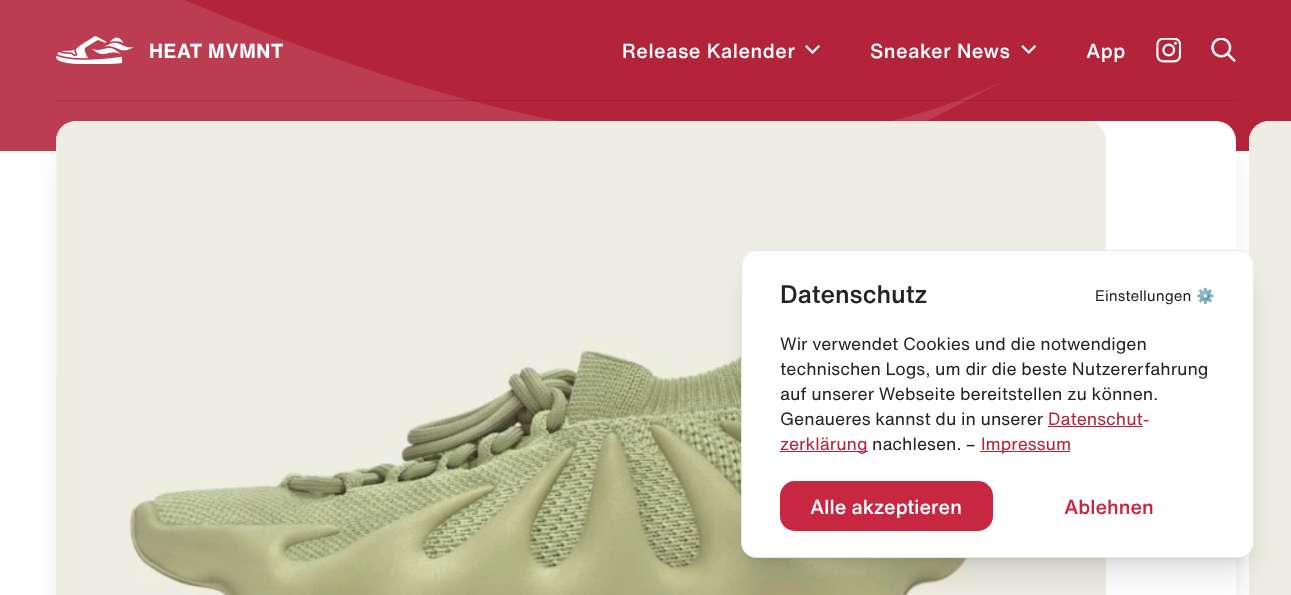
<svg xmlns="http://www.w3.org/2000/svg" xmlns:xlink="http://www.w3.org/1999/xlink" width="1291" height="595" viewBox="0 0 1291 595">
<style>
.cls-1{font:bold 20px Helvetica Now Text;letter-spacing:0.5px;fill:#ffffff}
.cls-2{font:500 20px Helvetica Now Text;letter-spacing:0.5px;fill:#ffffff}
.cls-3{font:500 25px Helvetica Now Text;fill:#272324}
.cls-4{font:15px Helvetica Now Text;fill:#272324}
.cls-5{font:15px Noto Color Emoji;fill:#272324}
.cls-6{font:17.5px Helvetica Now Text;fill:#272324}
.cls-7{font:17.5px Helvetica Now Text;fill:#b3233a}
.cls-8{font:500 20px Helvetica Now Text;fill:#ffffff}
.cls-9{font:500 20px Helvetica Now Text;fill:#c72740}
</style>
<defs>
<clipPath id="clip1"><rect x="0" y="0" width="1020" height="151"/></clipPath>
</defs>
<rect width="100%" height="100%" fill="#ffffff"/>
<rect fill="#b3233a" x="184" y="0" width="1107" height="151"/>
<g clip-path="url(#clip1)">
<path fill="#bc3d52" d="M-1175 118C-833-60-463-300-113-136C236 28 678 251 1020 73C678 251 301 444-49 280C-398 116-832-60-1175 118Z"/>
</g>
<image xlink:href="image0.png" x="56" y="36" width="79" height="28"/>
<image xlink:href="image1.png" x="805" y="45" width="15" height="9"/>
<image xlink:href="image2.png" x="1021" y="45" width="15" height="9"/>
<image xlink:href="image3.png" x="1156" y="38" width="25" height="25"/>
<image xlink:href="image4.png" x="1211" y="38" width="25" height="24"/>
<rect fill="#8c1c2e" fill-opacity="0.5" x="56" y="100" width="1180" height="1"/>
<rect fill="#000000" fill-opacity="0.1" filter="blur(15.5px)" x="63" y="153" width="1167" height="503" rx="14"/>
<rect fill="#ffffff" x="56" y="121" width="1180" height="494" rx="20"/>
<image xlink:href="image5.png" x="56" y="121" width="1050" height="474"/>
<path fill="#ffffff" d="M1269 121H1291V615H1269C1258 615 1249 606 1249 595V141C1249 130 1258 121 1269 121Z"/>
<image xlink:href="image6.png" x="1249" y="121" width="42" height="474"/>
<rect fill="#000000" fill-opacity="0.1" filter="blur(6px)" x="749" y="268" width="497" height="292" rx="8"/>
<rect fill="#000000" fill-opacity="0.1" filter="blur(15.5px)" x="748" y="281" width="500" height="295" rx="9"/>
<rect fill="#ffffff" stroke="#e5e7e9" x="741.5" y="250.5" width="512" height="307" rx="14.5"/>
<rect fill="#b3233a" x="1048" y="426" width="95" height="1"/>
<rect fill="#b3233a" x="780" y="451" width="88" height="1"/>
<rect fill="#b3233a" x="980" y="451" width="90" height="1"/>
<rect fill="#c72740" x="780" y="481" width="213" height="50" rx="15"/>
<text class="cls-1" x="149" y="58">HEAT MVMNT</text>
<text class="cls-2" x="622" y="58">Release Kalender</text>
<text class="cls-2" x="870" y="58">Sneaker News</text>
<text class="cls-2" x="1086" y="58">App</text>
<text class="cls-3" x="780" y="303">Datenschutz</text>
<text class="cls-4" x="1095" y="301">Einstellungen</text>
<text class="cls-5" x="1196" y="301">⚙️</text>
<text class="cls-6"><tspan x="780" y="350">Wir verwendet Cookies und die notwendigen</tspan><tspan x="780" y="375">technischen Logs, um dir die beste Nutzererfahrung</tspan><tspan x="780" y="400">auf unserer Webseite bereitstellen zu können.</tspan><tspan x="780" y="425">Genaueres kannst du in unserer</tspan></text>
<text class="cls-7" x="1048" y="425">Datenschut-</text>
<text class="cls-7" x="780" y="450">zerklärung</text>
<text class="cls-6" x="872" y="450">nachlesen. –</text>
<text class="cls-7" x="981" y="450">Impressum</text>
<text class="cls-8" x="810" y="514">Alle akzeptieren</text>
<text class="cls-9" x="1064" y="514">Ablehnen</text>
</svg>
